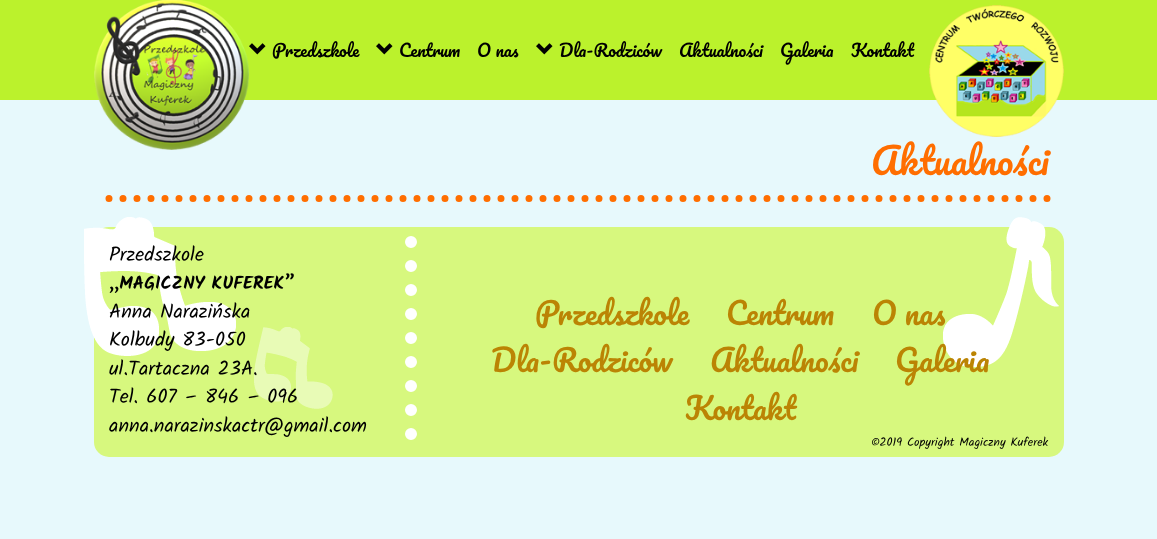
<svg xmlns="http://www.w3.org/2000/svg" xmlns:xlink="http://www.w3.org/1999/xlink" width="1157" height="539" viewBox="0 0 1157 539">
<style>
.cls-1{font:17px Pacifico;fill:#000000}
.cls-2{font:36px Pacifico;fill:#ff6e00}
.cls-3{font:20px Kalam;fill:#000000}
.cls-4{font:bold 18px Kalam;fill:#000000}
.cls-5{font:30px Pacifico;fill:#bb8404}
.cls-6{font:12px Kalam;fill:#000000}
</style>
<rect width="100%" height="100%" fill="#e7f9fc"/>
<rect fill="#bbf22c" x="0" y="0" width="1157" height="100"/>
<image xlink:href="image0.png" x="94" y="0" width="155" height="150"/>
<image xlink:href="image1.png" x="249" y="43" width="17" height="12"/>
<image xlink:href="image1.png" x="376" y="43" width="17" height="12"/>
<image xlink:href="image1.png" x="536" y="43" width="17" height="12"/>
<image xlink:href="image2.png" x="929" y="5" width="135" height="132"/>
<path fill="none" stroke="#ff6e00" stroke-width="7" stroke-linecap="round" stroke-dasharray="0 14" d="M109 198.5H1049"/>
<rect fill="#d7f87e" x="94" y="227" width="970" height="230" rx="15"/>
<image xlink:href="image3.png" x="84" y="217" width="152" height="139"/>
<image xlink:href="image4.png" x="943" y="217" width="116" height="150"/>
<path fill="none" stroke="#ffffff" stroke-width="12" stroke-linecap="round" stroke-dasharray="0 24" d="M411 242V442"/>
<image xlink:href="image5.png" x="254" y="327" width="79" height="82"/>
<text class="cls-1" x="272" y="57">Przedszkole</text>
<text class="cls-1" x="399" y="57">Centrum</text>
<text class="cls-1" x="477" y="57">O nas</text>
<text class="cls-1" x="559" y="57">Dla-Rodziców</text>
<text class="cls-1" x="679" y="57">Aktualności</text>
<text class="cls-1" x="780" y="57">Galeria</text>
<text class="cls-1" x="851" y="57">Kontakt</text>
<text class="cls-2" x="871" y="175">Aktualności</text>
<text class="cls-3" x="109" y="261">Przedszkole</text>
<text class="cls-4" x="109" y="289">„MAGICZNY KUFEREK”</text>
<text class="cls-3"><tspan x="109" y="318">Anna Narazińska</tspan><tspan x="109" y="346">Kolbudy 83-050</tspan><tspan x="109" y="375">ul.Tartaczna 23A.</tspan><tspan x="109" y="403">Tel. 607 – 846 – 096</tspan><tspan x="109" y="432">anna.narazinskactr@gmail.com</tspan></text>
<text class="cls-5" x="535" y="325">Przedszkole</text>
<text class="cls-5" x="726" y="325">Centrum</text>
<text class="cls-5" x="872" y="325">O nas</text>
<text class="cls-5" x="491" y="372">Dla-Rodziców</text>
<text class="cls-5" x="710" y="372">Aktualności</text>
<text class="cls-5" x="895" y="372">Galeria</text>
<text class="cls-5" x="685" y="420">Kontakt</text>
<text class="cls-6" x="871" y="446">©2019 Copyright Magiczny Kuferek</text>
</svg>
